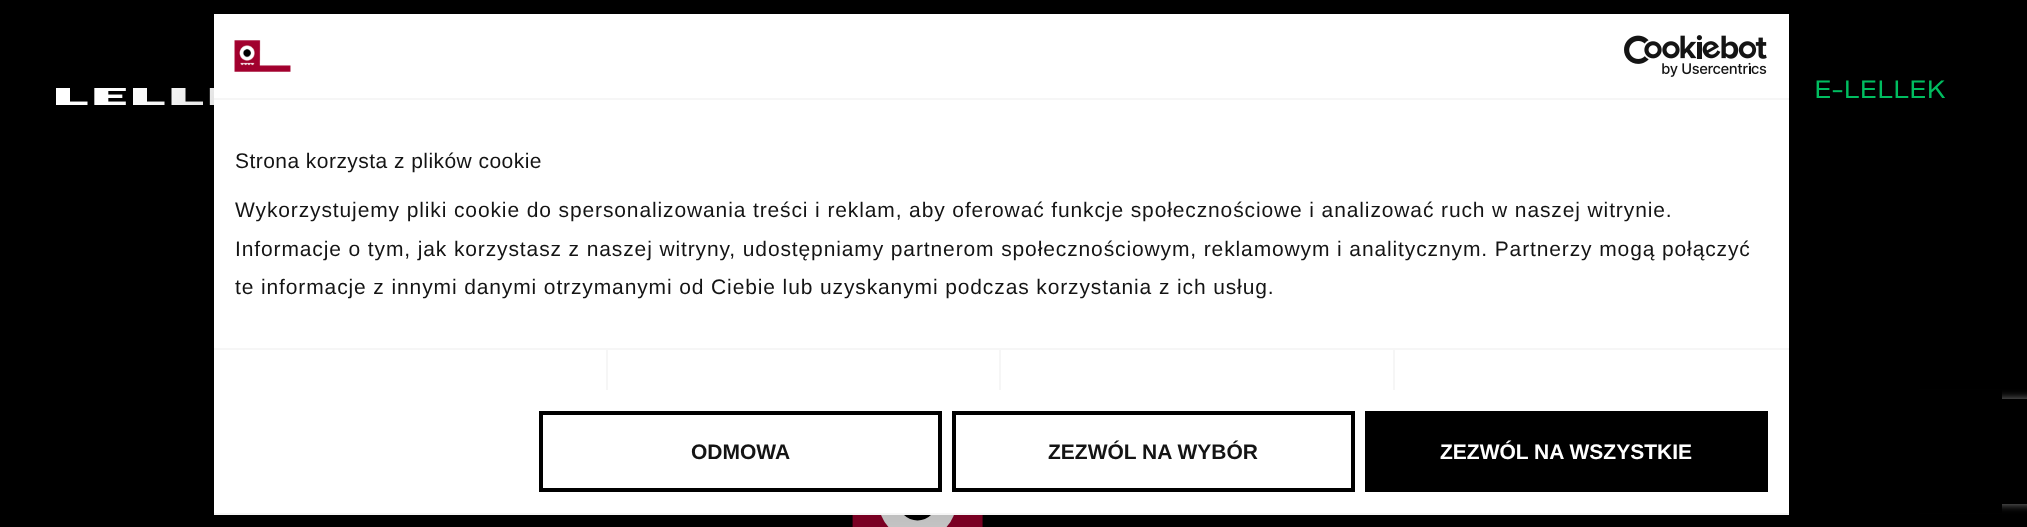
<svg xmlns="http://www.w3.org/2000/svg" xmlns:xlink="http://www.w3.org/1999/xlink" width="2027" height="527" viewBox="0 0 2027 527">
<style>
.cls-1{font:24.5px GT America;fill:#00bd60}
.cls-2{font:21px Liberation Sans;letter-spacing:0.45px;fill:#141414}
.cls-3{font:21px Liberation Sans;letter-spacing:0.88px;fill:#141414}
.cls-4{font:bold 21px Liberation Sans;fill:#141414}
.cls-5{font:bold 21px Liberation Sans;fill:#ffffff}
</style>
<defs>
<clipPath id="clip1"><path d="M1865 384H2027V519H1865ZM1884 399H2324C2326 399 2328 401 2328 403V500C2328 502 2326 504 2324 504H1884C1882 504 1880 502 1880 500V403C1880 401 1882 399 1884 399Z" clip-rule="evenodd"/></clipPath>
<clipPath id="clip2"><rect x="851" y="434" width="301" height="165"/></clipPath>
</defs>
<rect width="100%" height="100%" fill="#000000"/>
<image xlink:href="image0.png" x="56" y="88" width="158" height="17"/>
<g clip-path="url(#clip1)">
<rect fill="#808080" filter="blur(4.5px)" x="1880" y="399" width="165" height="105" rx="4"/>
</g>
<rect fill="#000000" x="1871" y="390" width="131" height="123"/>
<path fill="#a1002e" d="M985 434L984 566H1151V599H851V434Z"/>
<g clip-path="url(#clip2)">
<path fill="none" stroke="#000000" stroke-width="4.2" d="M985 434L984.5 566.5H1151.5V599.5H850.5V434Z"/>
</g>
<circle fill="#ffffff" cx="917.5" cy="501" r="39"/>
<circle fill="#000000" cx="917.5" cy="501" r="19.5"/>
<rect fill="#000000" fill-opacity="0.3" filter="blur(59.5px)" x="214" y="70" width="1575" height="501"/>
<rect fill="#ffffff" x="214" y="14" width="1575" height="499"/>
<rect fill="#f6f6f6" x="214" y="98" width="1575" height="2"/>
<image xlink:href="image1.png" x="234" y="40" width="57" height="32"/>
<image xlink:href="image2.png" x="1624" y="35" width="143" height="42"/>
<rect fill="#f6f6f6" x="214" y="348" width="1575" height="2"/>
<rect fill="#f6f6f6" x="606" y="350" width="2" height="40"/>
<rect fill="#f6f6f6" x="999" y="350" width="2" height="40"/>
<rect fill="#f6f6f6" x="1393" y="350" width="2" height="40"/>
<rect fill="#f6f6f6" x="214" y="513" width="1575" height="2"/>
<rect fill="none" stroke="#000000" stroke-width="4" x="541" y="413" width="399" height="77"/>
<rect fill="none" stroke="#000000" stroke-width="4" x="954" y="413" width="399" height="77"/>
<rect fill="#000000" x="1365" y="411" width="403" height="81"/>
<text class="cls-1" x="1814" y="98">E-LELLEK</text>
<text class="cls-2" x="235" y="168">Strona korzysta z plików cookie</text>
<text class="cls-3"><tspan x="235" y="217">Wykorzystujemy pliki cookie do spersonalizowania treści i reklam, aby oferować funkcje społecznościowe i analizować ruch w naszej witrynie.</tspan><tspan x="235" y="256">Informacje o tym, jak korzystasz z naszej witryny, udostępniamy partnerom społecznościowym, reklamowym i analitycznym. Partnerzy mogą połączyć</tspan><tspan x="235" y="294">te informacje z innymi danymi otrzymanymi od Ciebie lub uzyskanymi podczas korzystania z ich usług.</tspan></text>
<text class="cls-4" x="691" y="459">ODMOWA</text>
<text class="cls-4" x="1048" y="459">ZEZWÓL NA WYBÓR</text>
<text class="cls-5" x="1440" y="459">ZEZWÓL NA WSZYSTKIE</text>
</svg>
